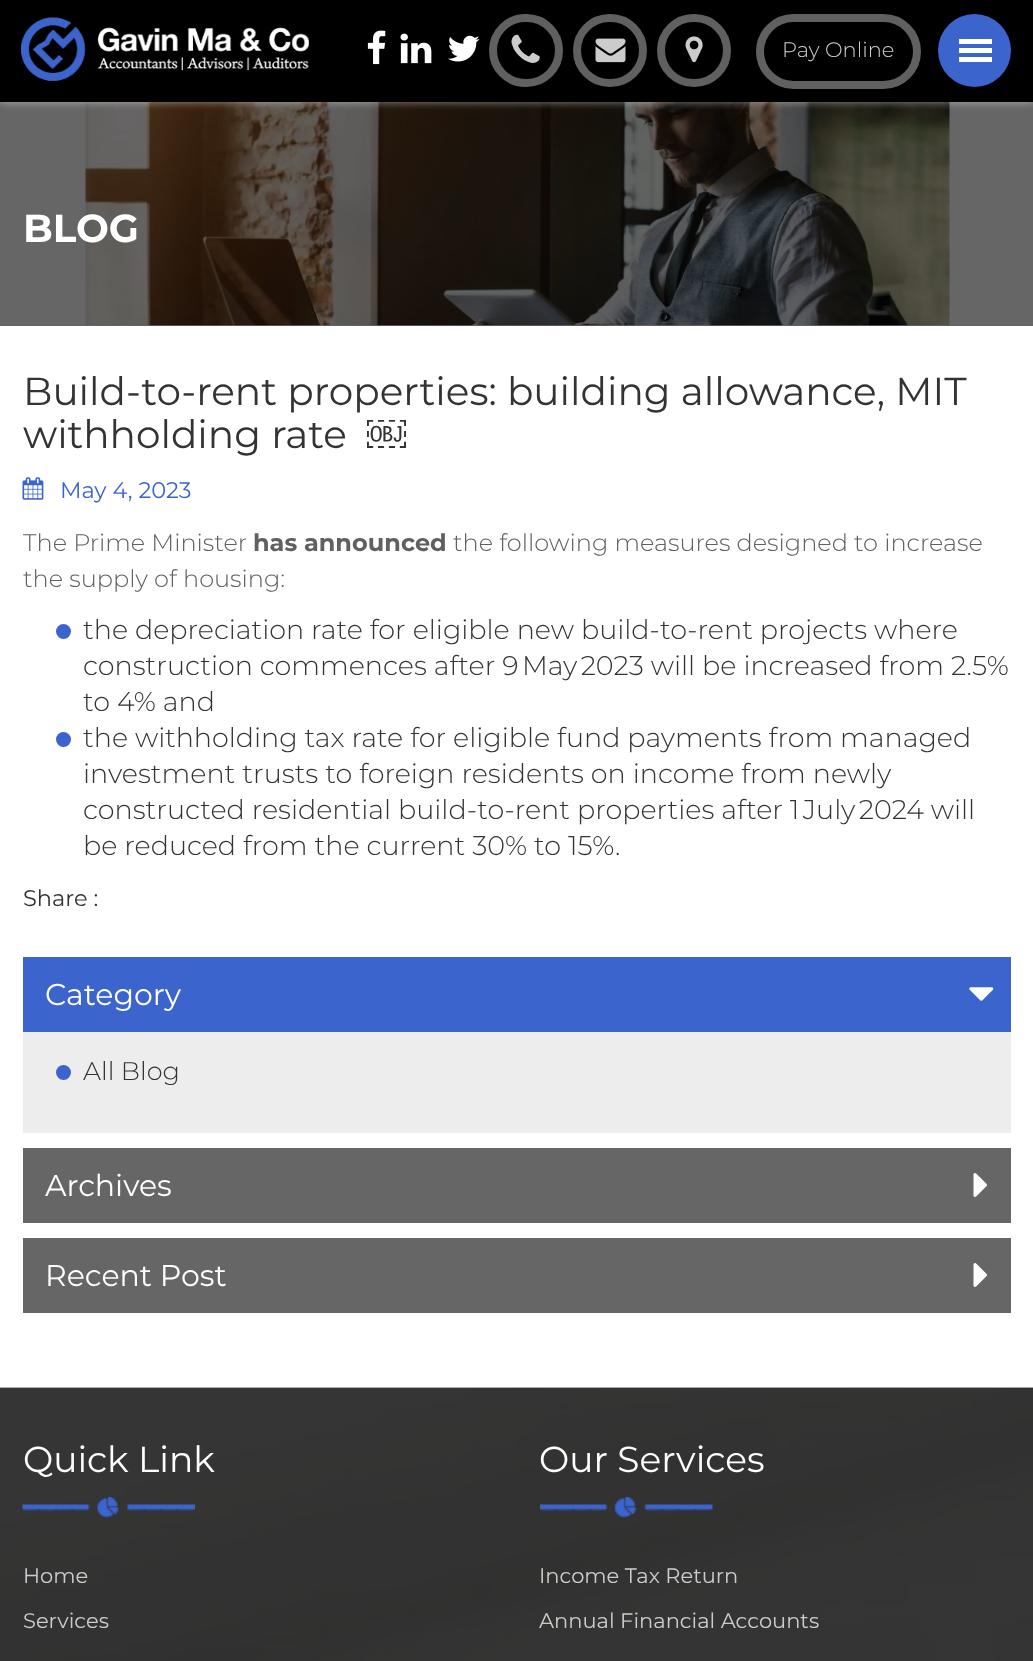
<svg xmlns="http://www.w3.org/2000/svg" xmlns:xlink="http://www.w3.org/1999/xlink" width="1033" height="1661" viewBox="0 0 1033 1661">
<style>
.cls-1{font:300 21px Montserrat;fill:#cccccc}
.cls-2{font:bold 39px Montserrat;fill:#ffffff}
.cls-3{font:39px Montserrat;fill:#333333}
.cls-4{font:39px Liberation Sans;fill:#333333}
.cls-5{font:22.5px Montserrat;fill:#3c64cd}
.cls-6{font:300 24px Montserrat;fill:#606060}
.cls-7{font:bold 24px Montserrat;fill:#606060}
.cls-8{font:300 27px Montserrat;fill:#333333}
.cls-9{font:22.5px Montserrat;fill:#333333}
.cls-10{font:30px Montserrat;fill:#ffffff}
.cls-11{font:300 25.5px Montserrat;fill:#333333}
.cls-12{font:36px Montserrat;fill:#ffffff}
.cls-13{font:21px Montserrat;fill:#cccccc}
</style>
<rect width="100%" height="100%" fill="#ffffff"/>
<rect fill="#666666" x="0" y="102" width="1033" height="224"/>
<image xlink:href="image7.png" x="85" y="102" width="865" height="224"/>
<rect fill="#ffffff" fill-opacity="0.5" filter="blur(4px)" x="0" y="0" width="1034" height="102"/>
<rect fill="#000000" x="0" y="0" width="1033" height="102"/>
<image xlink:href="image0.png" x="21" y="17" width="288" height="64"/>
<image xlink:href="image1.png" x="367" y="30" width="19" height="35"/>
<image xlink:href="image2.png" x="400" y="33" width="32" height="31"/>
<image xlink:href="image3.png" x="448" y="35" width="32" height="27"/>
<rect fill="none" stroke="#606060" stroke-width="8" x="493" y="18" width="66" height="65" rx="32.5"/>
<image xlink:href="image4.png" x="511" y="34" width="29" height="29"/>
<rect fill="none" stroke="#606060" stroke-width="8" x="577" y="18" width="66" height="65" rx="32.5"/>
<image xlink:href="image5.png" x="595" y="38" width="31" height="25"/>
<rect fill="none" stroke="#606060" stroke-width="8" x="661" y="18" width="66" height="65" rx="32.5"/>
<image xlink:href="image6.png" x="685" y="36" width="18" height="27"/>
<rect fill="none" stroke="#606060" stroke-width="8" x="760" y="18" width="157" height="67" rx="33.5"/>
<circle fill="#3c64cd" cx="974.5" cy="50.5" r="36.5"/>
<rect fill="#ffffff" x="959" y="39" width="33" height="5"/>
<rect fill="#ffffff" x="959" y="48" width="33" height="5"/>
<rect fill="#ffffff" x="959" y="57" width="33" height="5"/>
<image xlink:href="image8.png" x="22" y="477" width="22" height="23"/>
<circle fill="#3c64cd" cx="63.5" cy="631.5" r="7.5"/>
<circle fill="#3c64cd" cx="63.5" cy="739.5" r="7.5"/>
<rect fill="#3c64cd" x="23" y="957" width="988" height="75"/>
<image xlink:href="image9.png" x="969" y="987" width="25" height="14"/>
<rect fill="#ededed" x="23" y="1032" width="988" height="101"/>
<circle fill="#3c64cd" cx="63.5" cy="1072.5" r="7.5"/>
<rect fill="#666666" x="23" y="1148" width="988" height="75"/>
<image xlink:href="image10.png" x="973" y="1173" width="14" height="24"/>
<rect fill="#666666" x="23" y="1238" width="988" height="75"/>
<image xlink:href="image10.png" x="973" y="1263" width="14" height="24"/>
<image xlink:href="image11.png" x="0" y="1387" width="1033" height="274"/>
<image xlink:href="image12.png" x="22" y="1497" width="173" height="21"/>
<image xlink:href="image13.png" x="540" y="1497" width="173" height="21"/>
<text class="cls-1" x="782" y="57">Pay Online</text>
<text class="cls-2" x="23" y="242">BLOG</text>
<text class="cls-3"><tspan x="23" y="405">Build-to-rent properties: building allowance, MIT</tspan><tspan x="23" y="448">withholding rate</tspan></text>
<text class="cls-4" x="367" y="448">￼</text>
<text class="cls-5" x="60" y="498">May 4, 2023</text>
<text class="cls-6" x="23" y="551">The Prime Minister</text>
<text class="cls-7" x="253" y="551">has announced</text>
<text class="cls-6" x="453" y="551">the following measures designed to increase</text>
<text class="cls-6" x="23" y="587">the supply of housing:</text>
<text class="cls-8"><tspan x="83" y="639">the depreciation rate for eligible new build-to-rent projects where</tspan><tspan x="83" y="675">construction commences after 9 May 2023 will be increased from 2.5%</tspan><tspan x="83" y="711">to 4% and</tspan><tspan x="83" y="747">the withholding tax rate for eligible fund payments from managed</tspan><tspan x="83" y="783">investment trusts to foreign residents on income from newly</tspan><tspan x="83" y="819">constructed residential build-to-rent properties after 1 July 2024 will</tspan><tspan x="83" y="855">be reduced from the current 30% to 15%.</tspan></text>
<text class="cls-9" x="23" y="906">Share :</text>
<text class="cls-10" x="45" y="1005">Category</text>
<text class="cls-11" x="83" y="1080">All Blog</text>
<text class="cls-10" x="45" y="1196">Archives</text>
<text class="cls-10" x="45" y="1286">Recent Post</text>
<text class="cls-12" x="23" y="1472">Quick Link</text>
<text class="cls-13" x="23" y="1583">Home</text>
<text class="cls-13" x="23" y="1628">Services</text>
<text class="cls-12" x="539" y="1472">Our Services</text>
<text class="cls-13" x="539" y="1583">Income Tax Return</text>
<text class="cls-13" x="539" y="1628">Annual Financial Accounts</text>
</svg>
